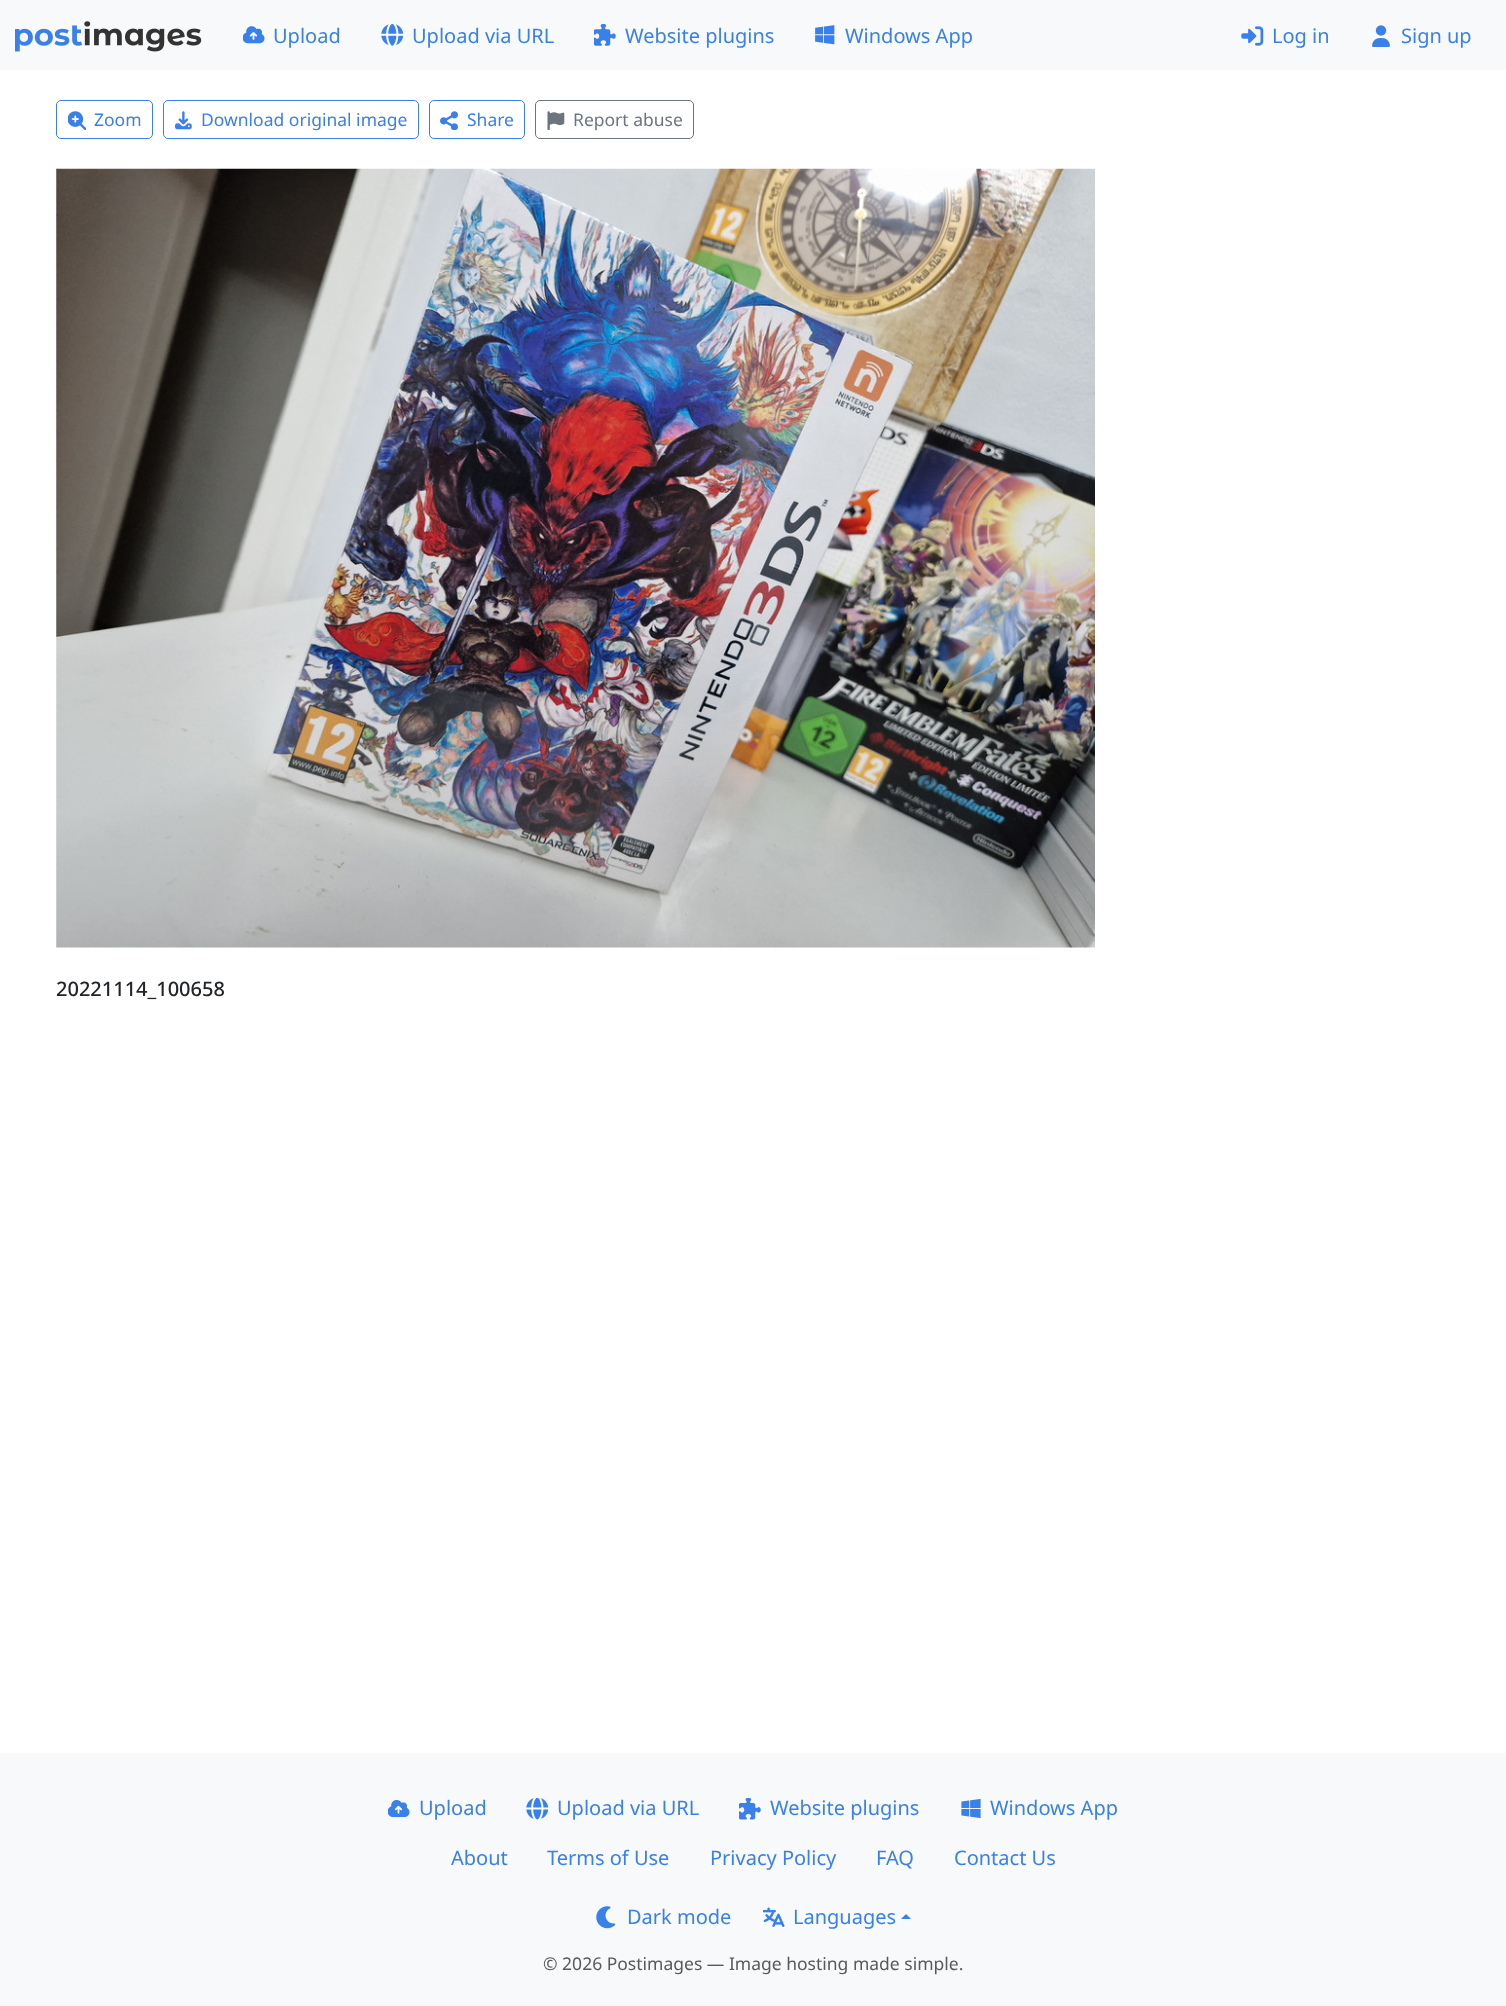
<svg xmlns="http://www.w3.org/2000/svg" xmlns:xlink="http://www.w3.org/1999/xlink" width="1506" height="2006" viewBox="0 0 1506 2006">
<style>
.cls-1{font:20px Noto Sans;fill:#3a80ea}
.cls-2{font:17.5px Noto Sans;fill:#3a80ea}
.cls-3{font:17.5px Noto Sans;fill:#6c757d}
.cls-4{font:500 20px Noto Sans;fill:#212529}
.cls-5{font:17.5px Noto Sans;fill:#575a5d}
</style>
<rect width="100%" height="100%" fill="#ffffff"/>
<rect fill="#f8f9fa" x="0" y="0" width="1506" height="70"/>
<image xlink:href="image0.png" x="15" y="21" width="187" height="31"/>
<image xlink:href="image1.png" x="243" y="26" width="22" height="18"/>
<image xlink:href="image2.png" x="381" y="24" width="22" height="22"/>
<image xlink:href="image3.png" x="594" y="24" width="22" height="22"/>
<image xlink:href="image4.png" x="815" y="25" width="20" height="20"/>
<image xlink:href="image5.png" x="1241" y="26" width="23" height="20"/>
<image xlink:href="image6.png" x="1372" y="25" width="18" height="22"/>
<rect fill="none" stroke="#3a80ea" x="56.5" y="100.5" width="96" height="38" rx="4.5"/>
<image xlink:href="image7.png" x="68" y="111" width="18" height="19"/>
<rect fill="none" stroke="#3a80ea" x="163.5" y="100.5" width="255" height="38" rx="4.5"/>
<image xlink:href="image8.png" x="174" y="111" width="18" height="19"/>
<rect fill="none" stroke="#3a80ea" x="429.5" y="100.5" width="95" height="38" rx="4.5"/>
<image xlink:href="image9.png" x="440" y="111" width="18" height="19"/>
<rect fill="none" stroke="#6c757d" x="535.5" y="100.5" width="158" height="38" rx="4.5"/>
<image xlink:href="image10.png" x="547" y="111" width="18" height="19"/>
<image xlink:href="image11.png" x="56" y="168" width="1039" height="780"/>
<rect fill="#f8f9fa" x="0" y="1753" width="1506" height="253"/>
<image xlink:href="image12.png" x="388" y="1799" width="22" height="19"/>
<image xlink:href="image13.png" x="526" y="1798" width="23" height="22"/>
<image xlink:href="image14.png" x="739" y="1798" width="22" height="22"/>
<image xlink:href="image15.png" x="961" y="1798" width="20" height="21"/>
<image xlink:href="image16.png" x="596" y="1906" width="20" height="23"/>
<image xlink:href="image17.png" x="763" y="1907" width="22" height="20"/>
<path fill="#3a80ea" d="M911 1919H901L906 1914Z"/>
<text class="cls-1" x="273" y="43">Upload</text>
<text class="cls-1" x="412" y="43">Upload via URL</text>
<text class="cls-1" x="625" y="43">Website plugins</text>
<text class="cls-1" x="845" y="43">Windows App</text>
<text class="cls-1" x="1272" y="43">Log in</text>
<text class="cls-1" x="1401" y="43">Sign up</text>
<text class="cls-2" x="94" y="126">Zoom</text>
<text class="cls-2" x="201" y="126">Download original image</text>
<text class="cls-2" x="467" y="126">Share</text>
<text class="cls-3" x="573" y="126">Report abuse</text>
<text class="cls-4" x="56" y="996">20221114_100658</text>
<text class="cls-1" x="419" y="1815">Upload</text>
<text class="cls-1" x="557" y="1815">Upload via URL</text>
<text class="cls-1" x="770" y="1815">Website plugins</text>
<text class="cls-1" x="990" y="1815">Windows App</text>
<text class="cls-1" x="451" y="1865">About</text>
<text class="cls-1" x="547" y="1865">Terms of Use</text>
<text class="cls-1" x="710" y="1865">Privacy Policy</text>
<text class="cls-1" x="876" y="1865">FAQ</text>
<text class="cls-1" x="954" y="1865">Contact Us</text>
<text class="cls-1" x="627" y="1924">Dark mode</text>
<text class="cls-1" x="793" y="1924">Languages</text>
<text class="cls-5" x="543" y="1970">© 2026 Postimages — Image hosting made simple.</text>
</svg>
